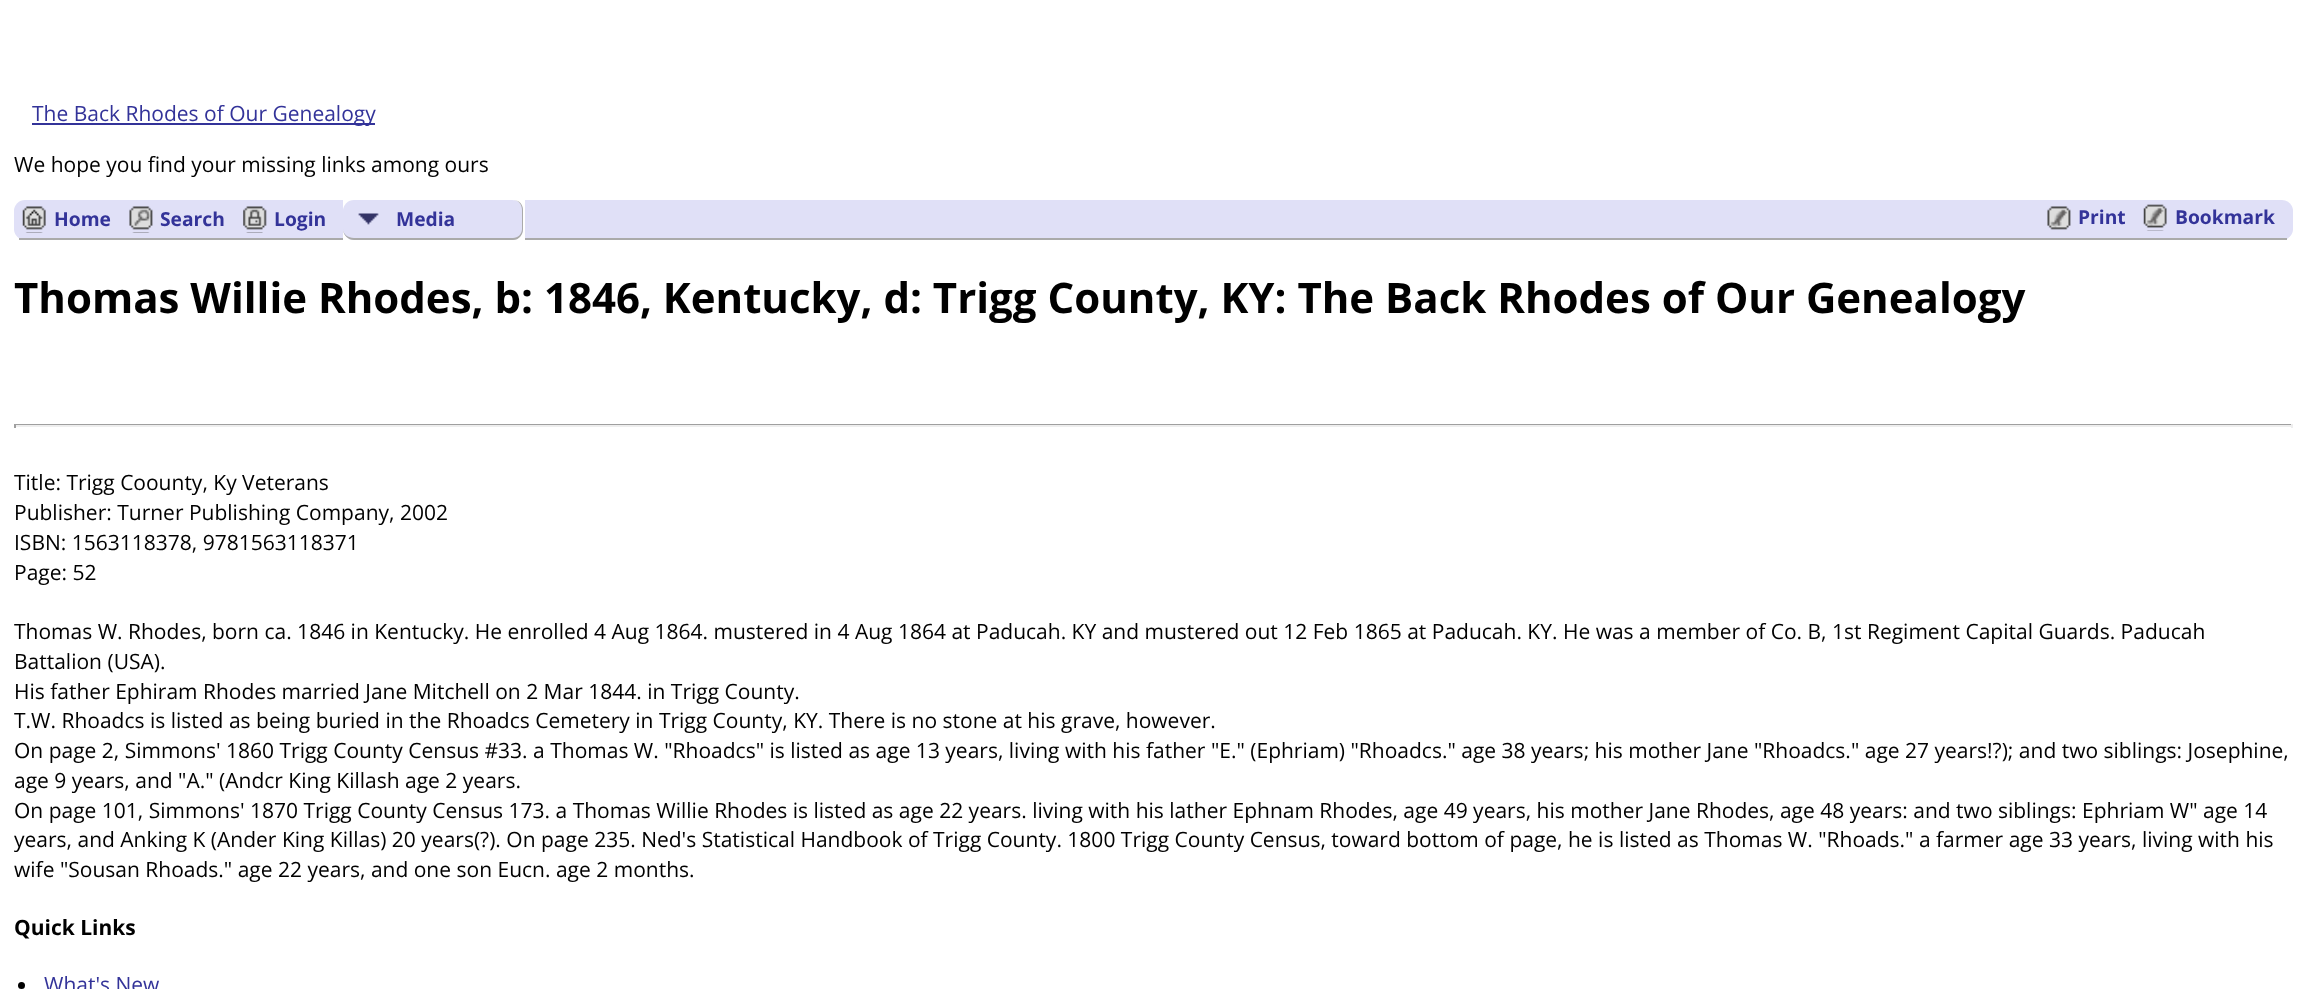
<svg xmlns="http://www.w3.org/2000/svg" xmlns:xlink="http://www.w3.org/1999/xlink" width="2306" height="989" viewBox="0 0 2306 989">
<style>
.cls-1{font:21px Open Sans;fill:#333399}
.cls-2{font:21px Open Sans;fill:#000000}
.cls-3{font:bold 19.25px Open Sans;fill:#333399}
.cls-4{font:bold 42px Open Sans;fill:#000000}
.cls-5{font:bold 21px Open Sans;fill:#000000}
</style>
<rect width="100%" height="100%" fill="#ffffff"/>
<rect fill="#333399" x="32" y="123" width="343" height="2"/>
<rect fill="#e0e0f7" x="14" y="200" width="2279" height="40" rx="11"/>
<rect fill="#aaaaaa" x="19" y="238" width="2268" height="2"/>
<image xlink:href="image0.png" x="22" y="206" width="24" height="27"/>
<image xlink:href="image1.png" x="129" y="206" width="24" height="27"/>
<image xlink:href="image2.png" x="243" y="206" width="24" height="27"/>
<rect fill="#ffffff" x="343" y="200" width="182" height="40"/>
<rect fill="#e0e0f7" x="343" y="200" width="180" height="40" rx="11"/>
<image xlink:href="image3.png" x="358" y="213" width="21" height="12"/>
<path fill="#aaaaaa" fill-rule="evenodd" d="M354 200H513C519 200 523 204 523 210V229C523 235 519 240 513 240H354C348 240 343 235 343 229V210C343 204 348 200 354 200ZM354 200H513C518 200 522 204 522 210V229C522 234 518 238 513 238H354C348 238 343 234 343 229V210C343 204 348 200 354 200Z"/>
<image xlink:href="image4.png" x="2047" y="206" width="24" height="24"/>
<image xlink:href="image5.png" x="2143" y="204" width="24" height="27"/>
<rect fill="#9f9f9f" x="14" y="424" width="2279" height="1"/>
<rect fill="#eeeeee" x="2291" y="424" width="2" height="4"/>
<rect fill="#eeeeee" x="14" y="425" width="2279" height="2"/>
<rect fill="#9f9f9f" x="14" y="424" width="2" height="4"/>
<circle fill="#000000" cx="21.5" cy="985.5" r="3.5"/>
<text class="cls-1" x="32" y="121">The Back Rhodes of Our Genealogy</text>
<text class="cls-2" x="14" y="172">We hope you find your missing links among ours</text>
<text class="cls-3" x="54" y="226">Home</text>
<text class="cls-3" x="160" y="226">Search</text>
<text class="cls-3" x="274" y="226">Login</text>
<text class="cls-3" x="396" y="226">Media</text>
<text class="cls-3" x="2078" y="224">Print</text>
<text class="cls-3" x="2175" y="224">Bookmark</text>
<text class="cls-4" x="14" y="313">Thomas Willie Rhodes, b: 1846, Kentucky, d: Trigg County, KY: The Back Rhodes of Our Genealogy</text>
<text class="cls-2"><tspan x="14" y="490">Title: Trigg Coounty, Ky Veterans</tspan><tspan x="14" y="520">Publisher: Turner Publishing Company, 2002</tspan><tspan x="14" y="550">ISBN: 1563118378, 9781563118371</tspan><tspan x="14" y="580">Page: 52</tspan></text>
<text class="cls-2"><tspan x="14" y="639">Thomas W. Rhodes, born ca. 1846 in Kentucky. He enrolled 4 Aug 1864. mustered in 4 Aug 1864 at Paducah. KY and mustered out 12 Feb 1865 at Paducah. KY. He was a member of Co. B, 1st Regiment Capital Guards. Paducah</tspan><tspan x="14" y="669">Battalion (USA).</tspan><tspan x="14" y="699">His father Ephiram Rhodes married Jane Mitchell on 2 Mar 1844. in Trigg County.</tspan><tspan x="14" y="728">T.W. Rhoadcs is listed as being buried in the Rhoadcs Cemetery in Trigg County, KY. There is no stone at his grave, however.</tspan><tspan x="14" y="758">On page 2, Simmons' 1860 Trigg County Census #33. a Thomas W. "Rhoadcs" is listed as age 13 years, living with his father "E." (Ephriam) "Rhoadcs." age 38 years; his mother Jane "Rhoadcs." age 27 years!?); and two siblings: Josephine,</tspan><tspan x="14" y="788">age 9 years, and "A." (Andcr King Killash age 2 years.</tspan><tspan x="14" y="818">On page 101, Simmons' 1870 Trigg County Census 173. a Thomas Willie Rhodes is listed as age 22 years. living with his lather Ephnam Rhodes, age 49 years, his mother Jane Rhodes, age 48 years: and two siblings: Ephriam W" age 14</tspan><tspan x="14" y="847">years, and Anking K (Ander King Killas) 20 years(?). On page 235. Ned's Statistical Handbook of Trigg County. 1800 Trigg County Census, toward bottom of page, he is listed as Thomas W. "Rhoads." a farmer age 33 years, living with his</tspan><tspan x="14" y="877">wife "Sousan Rhoads." age 22 years, and one son Eucn. age 2 months.</tspan></text>
<text class="cls-5" x="14" y="935">Quick Links</text>
<text class="cls-1" x="44" y="992">What's New</text>
</svg>
